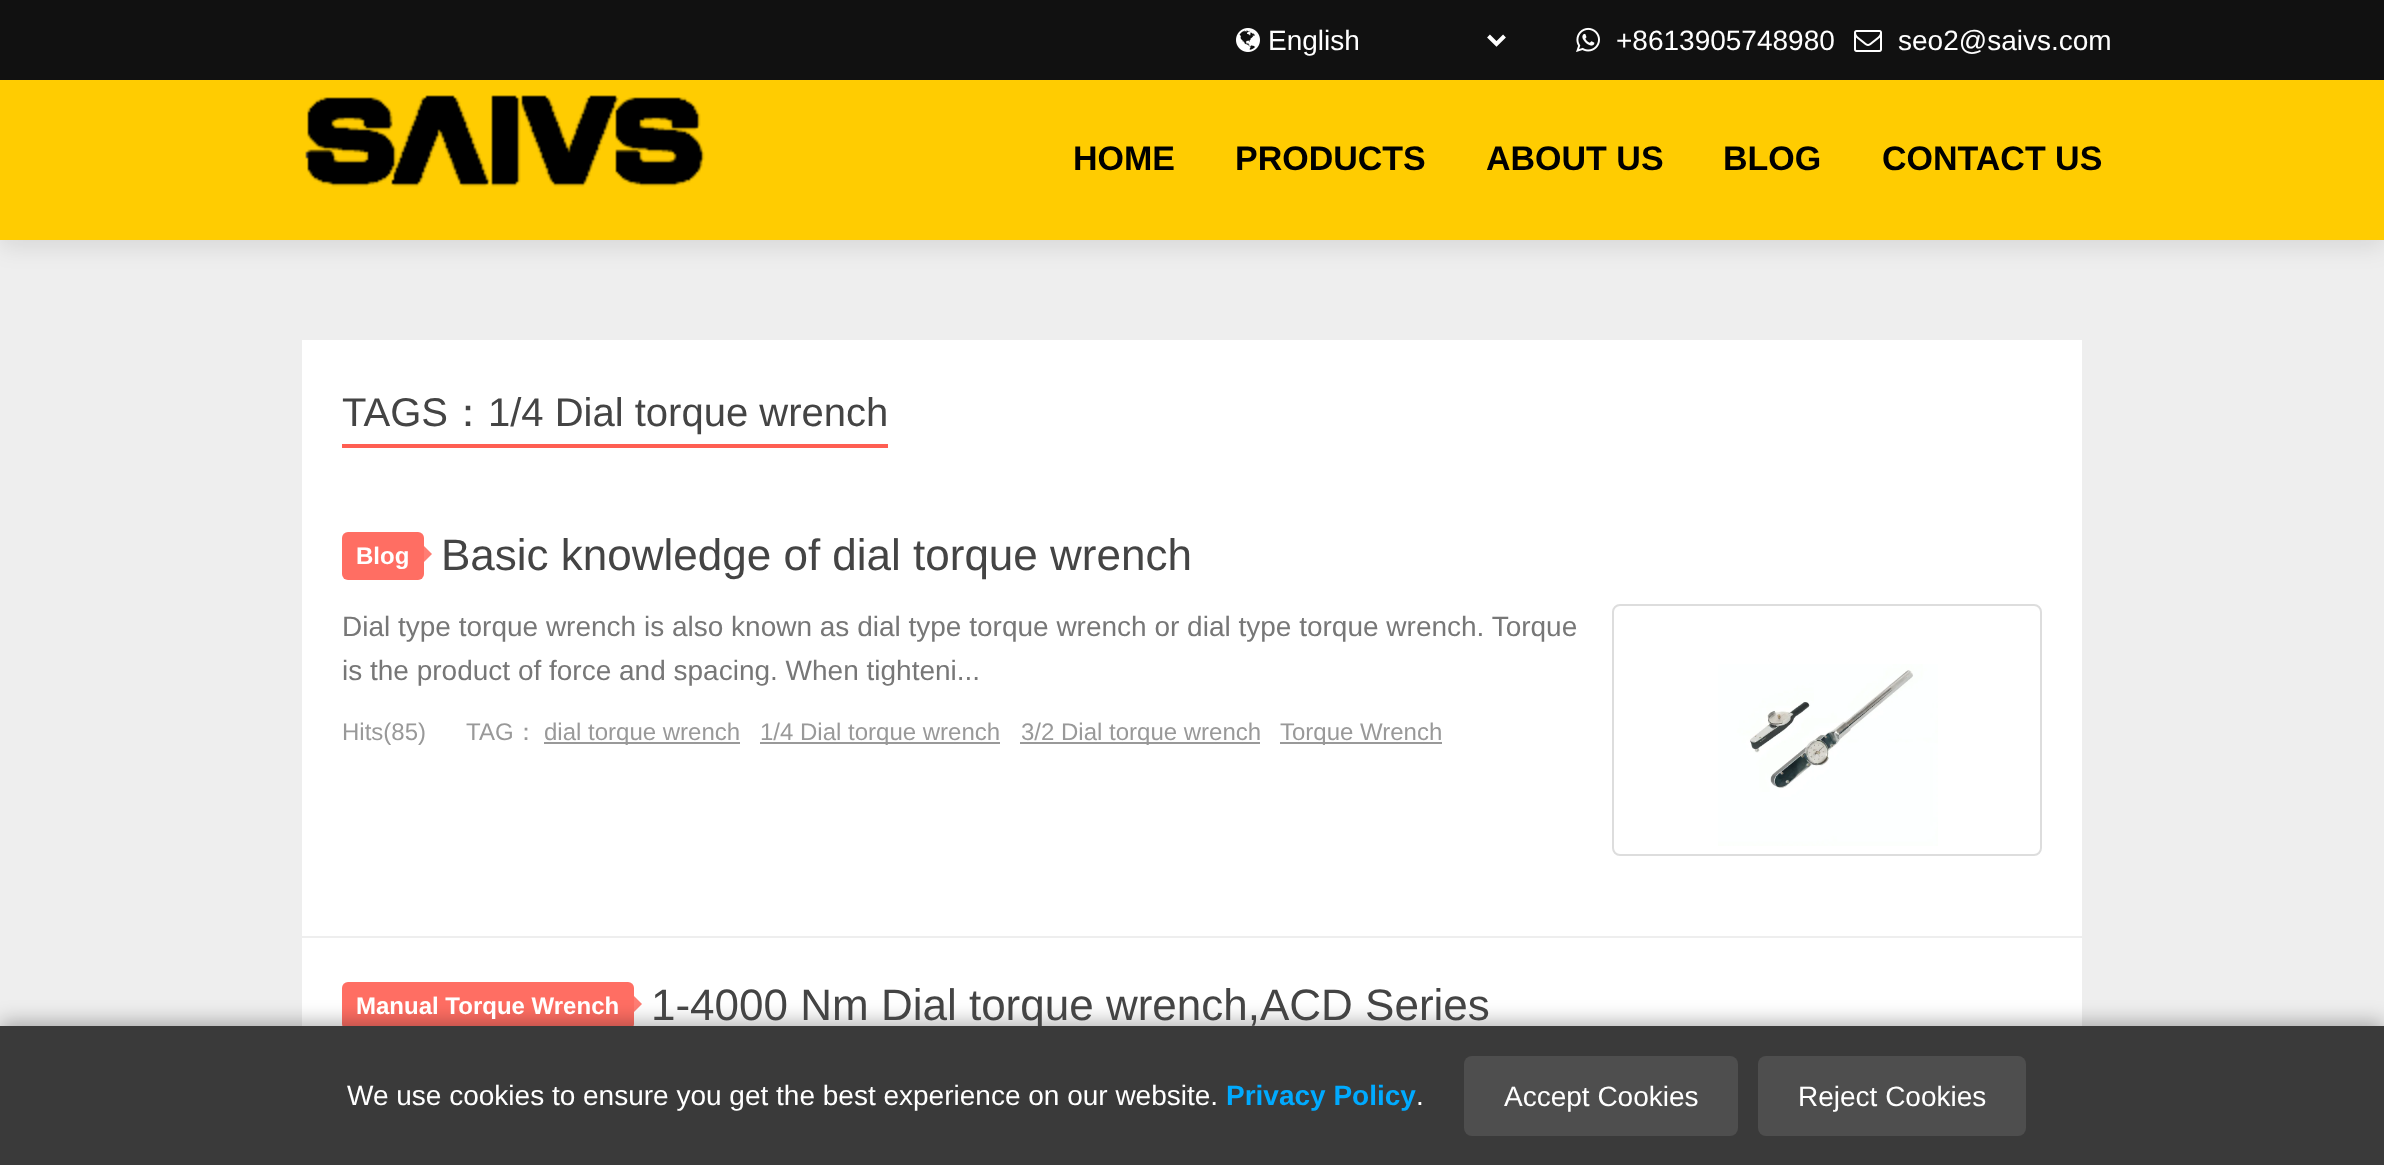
<svg xmlns="http://www.w3.org/2000/svg" xmlns:xlink="http://www.w3.org/1999/xlink" width="2384" height="1165" viewBox="0 0 2384 1165">
<style>
.cls-1{font:28px Liberation Sans;fill:#ffffff}
.cls-2{font:bold 34px Liberation Sans;fill:#000000}
.cls-3{font:40px Liberation Sans;fill:#444444}
.cls-4{font:500 40px WenQuanYi Zen Hei;fill:#444444}
.cls-5{font:bold 24px Liberation Sans;fill:#ffffff}
.cls-6{font:44px Liberation Sans;fill:#444444}
.cls-7{font:28px Liberation Sans;fill:#777777}
.cls-8{font:24px Liberation Sans;fill:#999999}
.cls-9{font:500 24px WenQuanYi Zen Hei;fill:#999999}
.cls-10{font:bold 28px Liberation Sans;fill:#00aaff}
</style>
<rect width="100%" height="100%" fill="#eeeeee"/>
<rect fill="#000000" fill-opacity="0.1" filter="blur(12px)" x="0" y="6" width="2384" height="240"/>
<rect fill="#ffcc01" x="0" y="80" width="2384" height="160"/>
<rect fill="#111111" x="0" y="0" width="2384" height="80"/>
<image xlink:href="image0.png" x="1236" y="28" width="24" height="24"/>
<path fill="none" stroke="#ffffff" stroke-width="4" d="M1488.5 36L1496.5 44L1504.5 36"/>
<image xlink:href="image1.png" x="1576" y="27" width="24" height="25"/>
<image xlink:href="image2.png" x="1854" y="30" width="28" height="22"/>
<image xlink:href="image3.png" x="305" y="95" width="400" height="92"/>
<rect fill="#ffffff" x="302" y="340" width="1780" height="596"/>
<rect fill="#ff5e52" x="342" y="444" width="546" height="4"/>
<rect fill="#ff6e63" x="342" y="532" width="82" height="48" rx="6"/>
<path fill="#ff7d73" d="M424 562V546L432 554Z"/>
<rect fill="none" stroke="#dddddd" stroke-width="2" x="1613" y="605" width="428" height="250" rx="7"/>
<image xlink:href="image4.png" x="1718" y="664" width="220" height="182"/>
<rect fill="#999999" x="544" y="742" width="196" height="2"/>
<rect fill="#999999" x="760" y="742" width="240" height="2"/>
<rect fill="#999999" x="1020" y="742" width="240" height="2"/>
<rect fill="#999999" x="1280" y="742" width="162" height="2"/>
<rect fill="#ffffff" x="302" y="938" width="1780" height="88"/>
<rect fill="#ff6e63" x="342" y="982" width="292" height="48" rx="6"/>
<path fill="#ff7d73" d="M634 1012V996L642 1004Z"/>
<rect fill="#000000" fill-opacity="0.3" filter="blur(10px)" x="0" y="1022" width="2384" height="140"/>
<text class="cls-1" x="1268" y="50">English</text>
<text class="cls-1" x="1616" y="50">+8613905748980</text>
<text class="cls-1" x="1898" y="50">seo2@saivs.com</text>
<text class="cls-2" x="1073" y="170">HOME</text>
<text class="cls-2" x="1235" y="170">PRODUCTS</text>
<text class="cls-2" x="1486" y="170">ABOUT US</text>
<text class="cls-2" x="1723" y="170">BLOG</text>
<text class="cls-2" x="1882" y="170">CONTACT US</text>
<text class="cls-3" x="342" y="426">TAGS</text>
<text class="cls-4" x="448" y="426">：</text>
<text class="cls-3" x="488" y="426">1/4 Dial torque wrench</text>
<text class="cls-5" x="356" y="564">Blog</text>
<text class="cls-6" x="441" y="570">Basic knowledge of dial torque wrench</text>
<text class="cls-7"><tspan x="342" y="636">Dial type torque wrench is also known as dial type torque wrench or dial type torque wrench. Torque</tspan><tspan x="342" y="680">is the product of force and spacing. When tighteni...</tspan></text>
<text class="cls-8" x="342" y="740">Hits(85)</text>
<text class="cls-8" x="466" y="740">TAG</text>
<text class="cls-9" x="514" y="740">：</text>
<text class="cls-8" x="544" y="740">dial torque wrench</text>
<text class="cls-8" x="760" y="740">1/4 Dial torque wrench</text>
<text class="cls-8" x="1021" y="740">3/2 Dial torque wrench</text>
<text class="cls-8" x="1280" y="740">Torque Wrench</text>
<text class="cls-5" x="356" y="1014">Manual Torque Wrench</text>
<text class="cls-6" x="651" y="1020">1-4000 Nm Dial torque wrench,ACD Series</text>
<rect fill="#3a3a3a" x="0" y="1026" width="2384" height="139"/>
<text class="cls-1" x="347" y="1105">We use cookies to ensure you get the best experience on our website.</text>
<text class="cls-10" x="1226" y="1105">Privacy Policy</text>
<text class="cls-1" x="1416" y="1105">.</text>
<rect fill="#4e4e4e" x="1464" y="1056" width="274" height="80" rx="8"/>
<text class="cls-1" x="1504" y="1106">Accept Cookies</text>
<rect fill="#4e4e4e" x="1758" y="1056" width="268" height="80" rx="8"/>
<text class="cls-1" x="1798" y="1106">Reject Cookies</text>
</svg>
